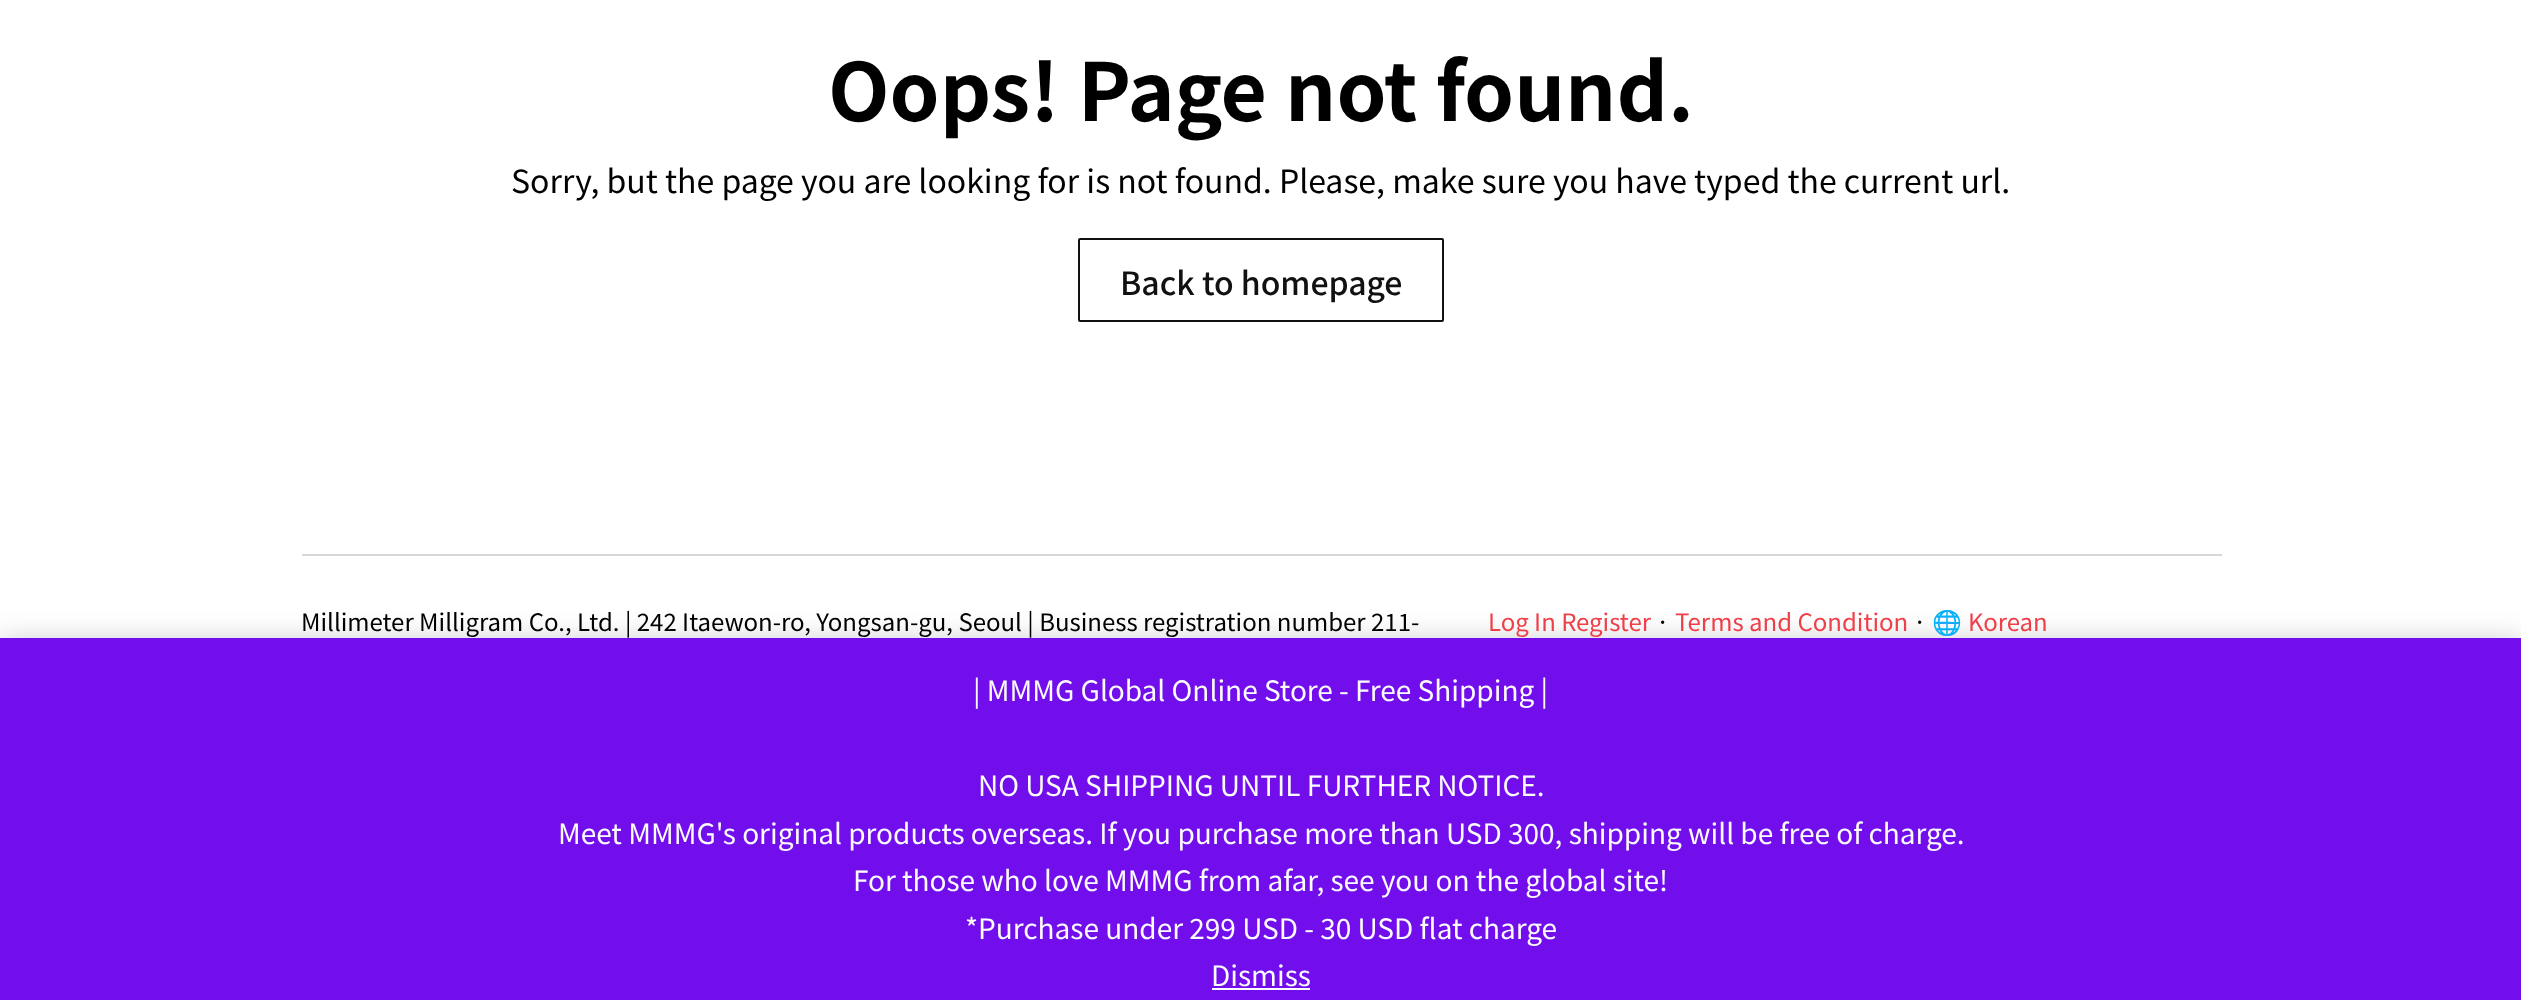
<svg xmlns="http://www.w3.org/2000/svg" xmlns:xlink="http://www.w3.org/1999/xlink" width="2521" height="1000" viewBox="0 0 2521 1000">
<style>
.cls-1{font:100 80px Noto Sans KR;fill:#000000}
.cls-2{font:100 32px 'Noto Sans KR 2';fill:#000000}
.cls-3{font:100 32px 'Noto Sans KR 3';fill:#111111}
.cls-4{font:100 24px 'Noto Sans KR 2';fill:#000000}
.cls-5{font:100 24px 'Noto Sans KR 2';fill:#ef3f49}
.cls-6{font:24px Noto Color Emoji;fill:#ef3f49}
.cls-7{font:100 28px 'Noto Sans KR 2';fill:#fcfbfe}
</style>
<rect width="100%" height="100%" fill="#ffffff"/>
<rect fill="none" stroke="#111111" stroke-width="2" x="1079" y="239" width="364" height="82" rx="1"/>
<rect fill="#d6d6d6" x="302" y="554" width="1920" height="2"/>
<rect fill="#000000" fill-opacity="0.2" filter="blur(14px)" x="0" y="640" width="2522" height="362"/>
<rect fill="#720eec" x="0" y="638" width="2521" height="362"/>
<rect fill="#fcfbfe" x="1212" y="988" width="98" height="2"/>
<text class="cls-1" x="828" y="121">Oops! Page not found.</text>
<text class="cls-2" x="511" y="193">Sorry, but the page you are looking for is not found. Please, make sure you have typed the current url.</text>
<text class="cls-3" x="1120" y="295">Back to homepage</text>
<text class="cls-4" x="301" y="631">Millimeter Milligram Co., Ltd. | 242 Itaewon-ro, Yongsan-gu, Seoul | Business registration number 211-</text>
<text class="cls-5" x="1488" y="631">Log In Register</text>
<text class="cls-4" x="1656" y="631">·</text>
<text class="cls-5" x="1675" y="631">Terms and Condition</text>
<text class="cls-4" x="1913" y="631">·</text>
<text class="cls-6" x="1932" y="631">🌐</text>
<text class="cls-5" x="1968" y="631">Korean</text>
<text class="cls-7" x="973" y="701">| MMMG Global Online Store - Free Shipping |</text>
<text class="cls-7" x="978" y="796">NO USA SHIPPING UNTIL FURTHER NOTICE.</text>
<text class="cls-7" x="558" y="844">Meet MMMG's original products overseas. If you purchase more than USD 300, shipping will be free of charge.</text>
<text class="cls-7" x="853" y="891">For those who love MMMG from afar, see you on the global site!</text>
<text class="cls-7" x="965" y="939">*Purchase under 299 USD - 30 USD flat charge</text>
<text class="cls-7" x="1211" y="986">Dismiss</text>
</svg>
